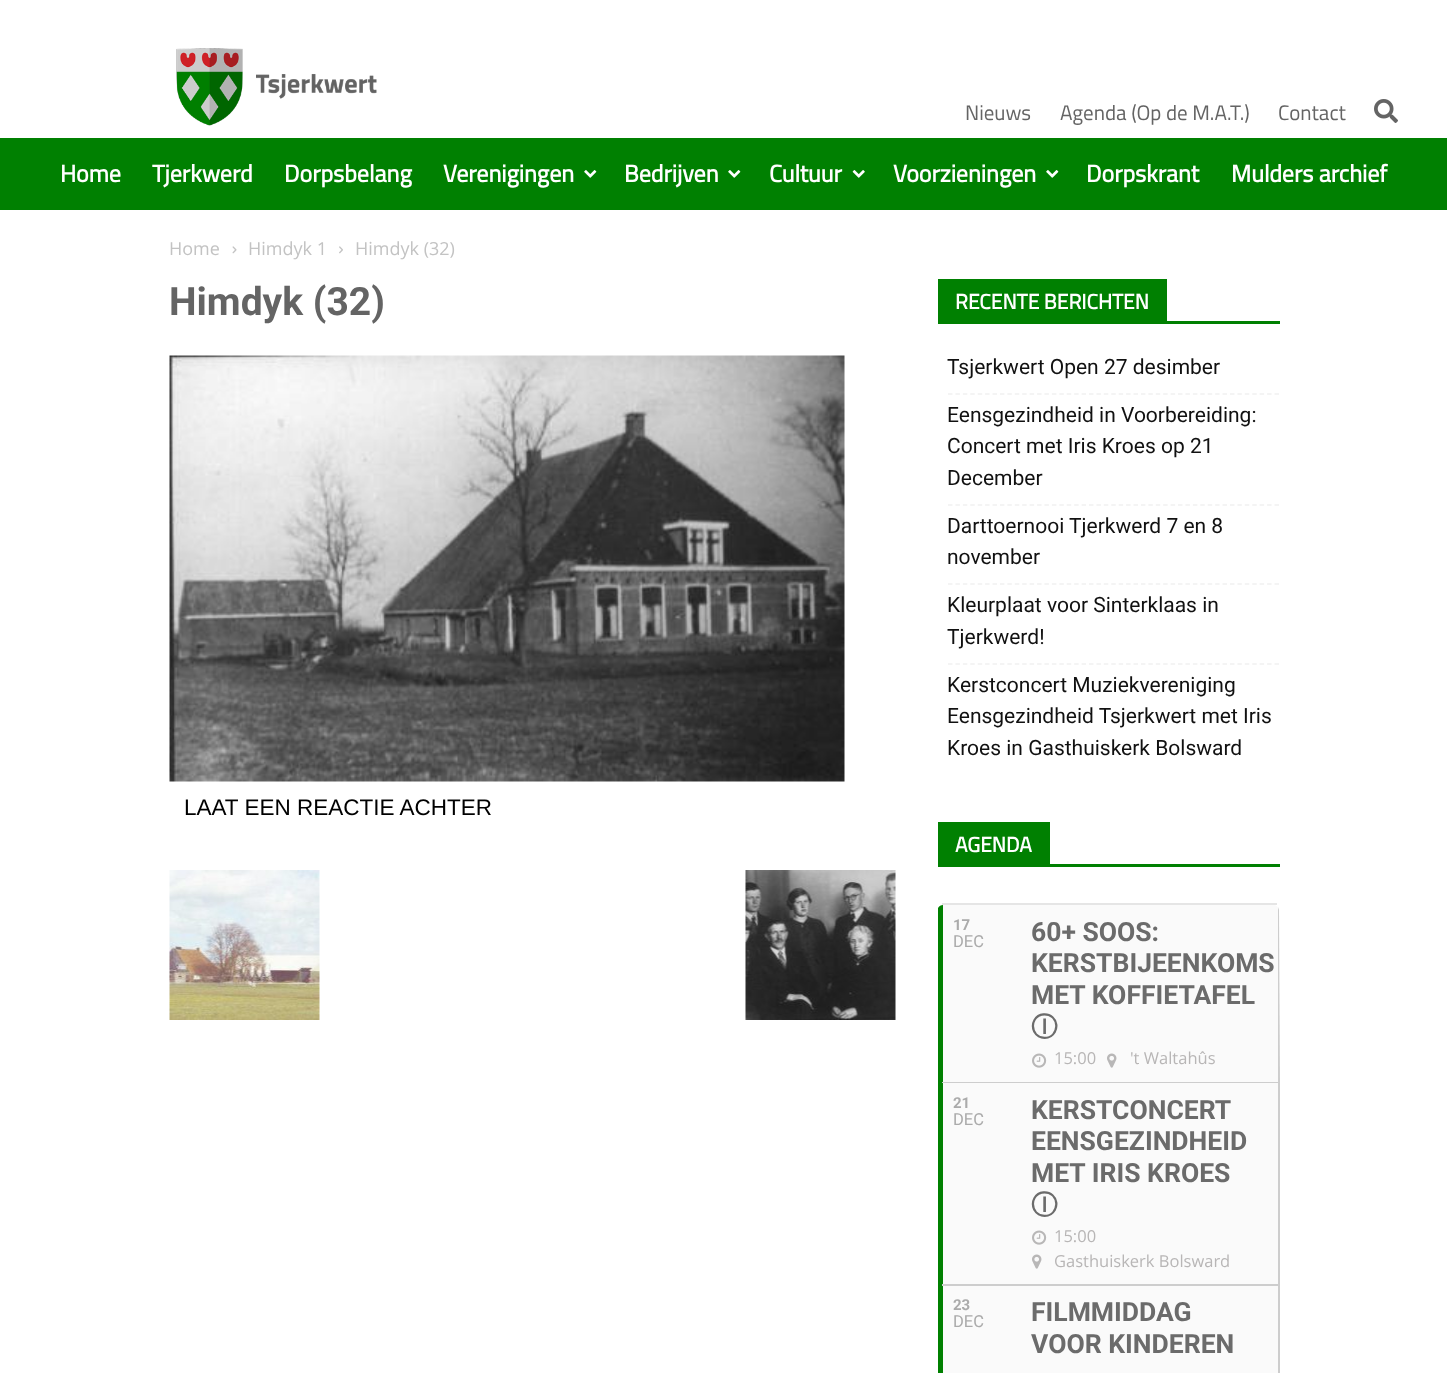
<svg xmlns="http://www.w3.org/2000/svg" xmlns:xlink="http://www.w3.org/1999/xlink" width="1447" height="1373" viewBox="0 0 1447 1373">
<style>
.cls-1{font:21px Cairo;fill:#646464}
.cls-2{font:bold 24px Cairo;fill:#ffffff}
.cls-3{font:18px Open Sans;fill:#c3c3c3}
.cls-4{font:bold 39px Roboto;fill:#646464}
.cls-5{font:22.5px Liberation Sans;fill:#000000}
.cls-6{font:bold 21px Cairo;fill:#ffffff}
.cls-7{font:21px Roboto;fill:#111111}
.cls-8{font:bold 15px Roboto;fill:#ababab}
.cls-9{font:16.5px Roboto;fill:#ababab}
.cls-10{font:bold 26.5px Roboto;fill:#6b6b6b}
.cls-11{font:bold 26.5px WenQuanYi Zen Hei;fill:#6b6b6b}
.cls-12{font:16.5px Open Sans;fill:#b8b6b6}
</style>
<rect width="100%" height="100%" fill="#ffffff"/>
<image xlink:href="image0.png" x="176" y="48" width="201" height="78"/>
<image xlink:href="image1.png" x="1374" y="99" width="24" height="24"/>
<rect fill="#008001" x="0" y="138" width="1447" height="72"/>
<image xlink:href="image2.png" x="584" y="170" width="13" height="8"/>
<image xlink:href="image2.png" x="728" y="170" width="13" height="8"/>
<image xlink:href="image3.png" x="852" y="170" width="13" height="8"/>
<image xlink:href="image2.png" x="1046" y="170" width="13" height="8"/>
<image xlink:href="image4.png" x="232" y="246" width="5" height="8"/>
<image xlink:href="image5.png" x="339" y="246" width="4" height="8"/>
<image xlink:href="image6.png" x="169" y="355" width="676" height="427"/>
<image xlink:href="image7.png" x="169" y="870" width="151" height="150"/>
<image xlink:href="image8.png" x="745" y="870" width="151" height="150"/>
<rect fill="#008001" x="938" y="321" width="342" height="3"/>
<rect fill="#008001" x="938" y="279" width="229" height="42"/>
<path fill="none" stroke="#f1f1f1" stroke-width="1.5" stroke-dasharray="4.5 2.92" d="M948 394H1279.5"/>
<path fill="none" stroke="#f1f1f1" stroke-width="1.5" stroke-dasharray="4.5 2.92" d="M948 505H1279.5"/>
<path fill="none" stroke="#f1f1f1" stroke-width="1.5" stroke-dasharray="4.5 2.92" d="M948 584H1279.5"/>
<path fill="none" stroke="#f1f1f1" stroke-width="1.5" stroke-dasharray="4.5 2.92" d="M948 664H1279.5"/>
<rect fill="#008001" x="938" y="864" width="342" height="3"/>
<rect fill="#008001" x="938" y="822" width="112" height="42"/>
<rect fill="#e5e5e5" x="942" y="903" width="335" height="2"/>
<path fill="#cdcdcd" d="M1278 907L1279 910L1280 1083H1278Z"/>
<path fill="#fafafa" d="M938 908C939 907 940 906 942 905H1275L1278 907V1083H938Z"/>
<path fill="#008000" d="M938 908C939 906 941 905 943 905V1083H938Z"/>
<image xlink:href="image9.png" x="1032" y="1053" width="15" height="15"/>
<image xlink:href="image10.png" x="1107" y="1053" width="10" height="15"/>
<rect fill="#cdcdcd" x="942" y="1082" width="336" height="1"/>
<rect fill="#cdcdcd" x="1278" y="1083" width="2" height="203"/>
<rect fill="#fafafa" x="943" y="1083" width="335" height="201"/>
<rect fill="#008000" x="938" y="1083" width="5" height="203"/>
<image xlink:href="image9.png" x="1032" y="1230" width="15" height="15"/>
<image xlink:href="image10.png" x="1032" y="1254" width="10" height="15"/>
<rect fill="#cdcdcd" x="942" y="1284" width="336" height="2"/>
<path fill="#cdcdcd" d="M1278 1286H1280V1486C1280 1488 1279 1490 1278 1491Z"/>
<path fill="#fafafa" d="M938 1286V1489C939 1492 942 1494 945 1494H1272C1274 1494 1277 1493 1278 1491V1286Z"/>
<path fill="#008000" d="M938 1286H943V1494C941 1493 939 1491 938 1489Z"/>
<text class="cls-1" x="965" y="120">Nieuws</text>
<text class="cls-1" x="1060" y="120">Agenda (Op de M.A.T.)</text>
<text class="cls-1" x="1278" y="120">Contact</text>
<text class="cls-2" x="60" y="182">Home</text>
<text class="cls-2" x="152" y="182">Tjerkwerd</text>
<text class="cls-2" x="284" y="182">Dorpsbelang</text>
<text class="cls-2" x="443" y="182">Verenigingen</text>
<text class="cls-2" x="624" y="182">Bedrijven</text>
<text class="cls-2" x="769" y="182">Cultuur</text>
<text class="cls-2" x="893" y="182">Voorzieningen</text>
<text class="cls-2" x="1086" y="182">Dorpskrant</text>
<text class="cls-2" x="1231" y="182">Mulders archief</text>
<text class="cls-3" x="169" y="255">Home</text>
<text class="cls-3" x="248" y="255">Himdyk 1</text>
<text class="cls-3" x="355" y="255">Himdyk (32)</text>
<text class="cls-4" x="169" y="315">Himdyk (32)</text>
<text class="cls-5" x="184" y="815">LAAT EEN REACTIE ACHTER</text>
<text class="cls-6" x="955" y="309">RECENTE BERICHTEN</text>
<text class="cls-7" x="947" y="374">Tsjerkwert Open 27 desimber</text>
<text class="cls-7"><tspan x="947" y="422">Eensgezindheid in Voorbereiding:</tspan><tspan x="947" y="453">Concert met Iris Kroes op 21</tspan><tspan x="947" y="485">December</tspan></text>
<text class="cls-7"><tspan x="947" y="533">Darttoernooi Tjerkwerd 7 en 8</tspan><tspan x="947" y="564">november</tspan></text>
<text class="cls-7"><tspan x="947" y="612">Kleurplaat voor Sinterklaas in</tspan><tspan x="947" y="644">Tjerkwerd!</tspan></text>
<text class="cls-7"><tspan x="947" y="692">Kerstconcert Muziekvereniging</tspan><tspan x="947" y="723">Eensgezindheid Tsjerkwert met Iris</tspan><tspan x="947" y="755">Kroes in Gasthuiskerk Bolsward</tspan></text>
<text class="cls-6" x="955" y="852">AGENDA</text>
<text class="cls-8" x="953" y="930">17</text>
<text class="cls-9" x="953" y="947">DEC</text>
<text class="cls-10"><tspan x="1031" y="941">60+ SOOS:</tspan><tspan x="1031" y="972">KERSTBIJEENKOMS</tspan><tspan x="1031" y="1004">MET KOFFIETAFEL</tspan></text>
<text class="cls-11" x="1031" y="1036">Ⓘ</text>
<text class="cls-12" x="1054" y="1064">15:00</text>
<text class="cls-12" x="1130" y="1064">'t Waltahûs</text>
<text class="cls-8" x="953" y="1108">21</text>
<text class="cls-9" x="953" y="1125">DEC</text>
<text class="cls-10"><tspan x="1031" y="1119">KERSTCONCERT</tspan><tspan x="1031" y="1150">EENSGEZINDHEID</tspan><tspan x="1031" y="1182">MET IRIS KROES</tspan></text>
<text class="cls-11" x="1031" y="1214">Ⓘ</text>
<text class="cls-12"><tspan x="1054" y="1242">15:00</tspan><tspan x="1054" y="1267">Gasthuiskerk Bolsward</tspan></text>
<text class="cls-8" x="953" y="1310">23</text>
<text class="cls-9" x="953" y="1327">DEC</text>
<text class="cls-10"><tspan x="1031" y="1321">FILMMIDDAG</tspan><tspan x="1031" y="1353">VOOR KINDEREN</tspan></text>
</svg>
